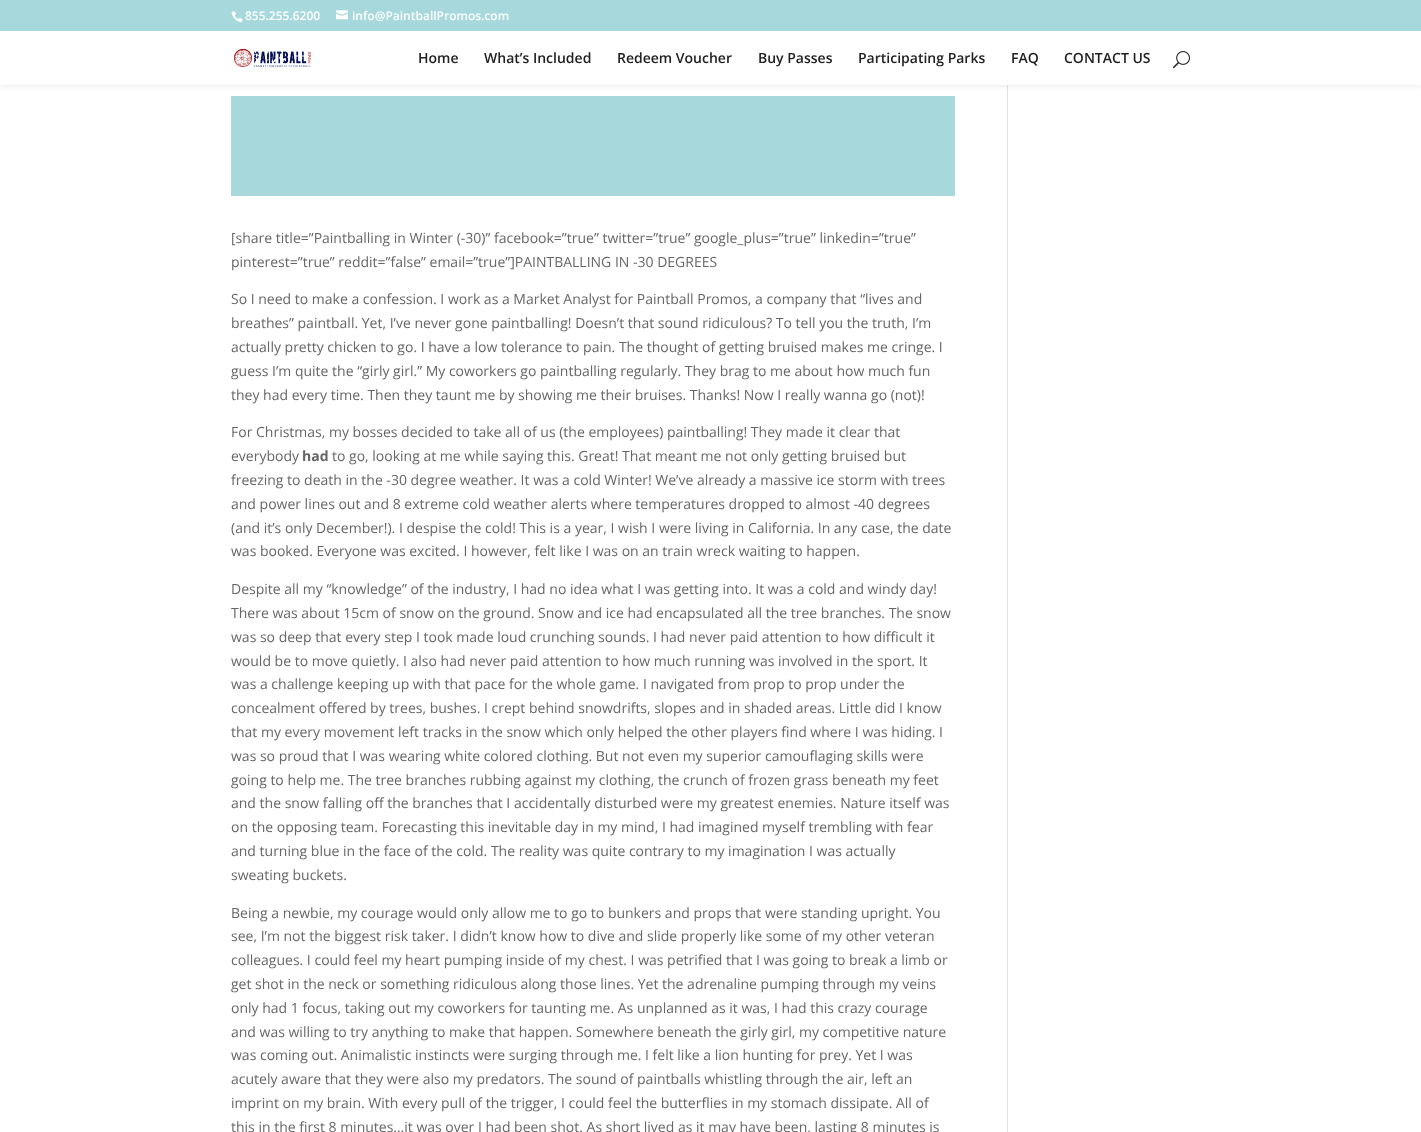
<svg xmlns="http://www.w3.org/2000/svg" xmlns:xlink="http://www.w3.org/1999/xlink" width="1421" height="1132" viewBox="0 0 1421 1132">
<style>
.cls-1{font:600 12px Open Sans;fill:#ffffff}
.cls-2{font:600 14px Open Sans;fill:#212121}
.cls-3{font:14px Open Sans;fill:#666666}
.cls-4{font:bold 14px Open Sans;fill:#666666}
</style>
<rect width="100%" height="100%" fill="#ffffff"/>
<rect fill="#a7d8dc" x="231" y="96" width="724" height="100"/>
<rect fill="#e2e2e2" x="1007" y="85" width="1" height="1047"/>
<rect fill="#000000" fill-opacity="0.1" filter="blur(3.5px)" x="0" y="31" width="1421" height="54"/>
<rect fill="#a7d8dc" x="0" y="0" width="1421" height="31"/>
<image xlink:href="image0.png" x="231" y="11" width="12" height="12"/>
<image xlink:href="image1.png" x="336" y="10" width="12" height="10"/>
<rect fill="#ffffff" x="0" y="31" width="1421" height="54"/>
<image xlink:href="image2.png" x="234" y="49" width="77" height="18"/>
<image xlink:href="image3.png" x="1173" y="51" width="17" height="18"/>
<text class="cls-1" x="245" y="20">855.255.6200</text>
<text class="cls-1" x="352" y="20">info@PaintballPromos.com</text>
<text class="cls-2" x="418" y="63">Home</text>
<text class="cls-2" x="484" y="63">What’s Included</text>
<text class="cls-2" x="617" y="63">Redeem Voucher</text>
<text class="cls-2" x="758" y="63">Buy Passes</text>
<text class="cls-2" x="858" y="63">Participating Parks</text>
<text class="cls-2" x="1011" y="63">FAQ</text>
<text class="cls-2" x="1064" y="63">CONTACT US</text>
<text class="cls-3"><tspan x="231" y="243">[share title=”Paintballing in Winter (-30)” facebook=”true” twitter=”true” google_plus=”true” linkedin=”true”</tspan><tspan x="231" y="267">pinterest=”true” reddit=”false” email=”true”]PAINTBALLING IN -30 DEGREES</tspan></text>
<text class="cls-3"><tspan x="231" y="304">So I need to make a confession. I work as a Market Analyst for Paintball Promos, a company that “lives and</tspan><tspan x="231" y="328">breathes” paintball. Yet, I’ve never gone paintballing! Doesn’t that sound ridiculous? To tell you the truth, I’m</tspan><tspan x="231" y="352">actually pretty chicken to go. I have a low tolerance to pain. The thought of getting bruised makes me cringe. I</tspan><tspan x="231" y="376">guess I’m quite the “girly girl.” My coworkers go paintballing regularly. They brag to me about how much fun</tspan><tspan x="231" y="400">they had every time. Then they taunt me by showing me their bruises. Thanks! Now I really wanna go (not)!</tspan></text>
<text class="cls-3"><tspan x="231" y="437">For Christmas, my bosses decided to take all of us (the employees) paintballing! They made it clear that</tspan><tspan x="231" y="461">everybody</tspan></text>
<text class="cls-4" x="302" y="461">had</text>
<text class="cls-3" x="332" y="461">to go, looking at me while saying this. Great! That meant me not only getting bruised but</text>
<text class="cls-3"><tspan x="231" y="485">freezing to death in the -30 degree weather. It was a cold Winter! We’ve already a massive ice storm with trees</tspan><tspan x="231" y="509">and power lines out and 8 extreme cold weather alerts where temperatures dropped to almost -40 degrees</tspan><tspan x="231" y="533">(and it’s only December!). I despise the cold! This is a year, I wish I were living in California. In any case, the date</tspan><tspan x="231" y="556">was booked. Everyone was excited. I however, felt like I was on an train wreck waiting to happen.</tspan></text>
<text class="cls-3"><tspan x="231" y="594">Despite all my “knowledge” of the industry, I had no idea what I was getting into. It was a cold and windy day!</tspan><tspan x="231" y="618">There was about 15cm of snow on the ground. Snow and ice had encapsulated all the tree branches. The snow</tspan><tspan x="231" y="642">was so deep that every step I took made loud crunching sounds. I had never paid attention to how difficult it</tspan><tspan x="231" y="666">would be to move quietly. I also had never paid attention to how much running was involved in the sport. It</tspan><tspan x="231" y="689">was a challenge keeping up with that pace for the whole game. I navigated from prop to prop under the</tspan><tspan x="231" y="713">concealment offered by trees, bushes. I crept behind snowdrifts, slopes and in shaded areas. Little did I know</tspan><tspan x="231" y="737">that my every movement left tracks in the snow which only helped the other players find where I was hiding. I</tspan><tspan x="231" y="761">was so proud that I was wearing white colored clothing. But not even my superior camouflaging skills were</tspan><tspan x="231" y="785">going to help me. The tree branches rubbing against my clothing, the crunch of frozen grass beneath my feet</tspan><tspan x="231" y="808">and the snow falling off the branches that I accidentally disturbed were my greatest enemies. Nature itself was</tspan><tspan x="231" y="832">on the opposing team. Forecasting this inevitable day in my mind, I had imagined myself trembling with fear</tspan><tspan x="231" y="856">and turning blue in the face of the cold. The reality was quite contrary to my imagination I was actually</tspan><tspan x="231" y="880">sweating buckets.</tspan></text>
<text class="cls-3"><tspan x="231" y="918">Being a newbie, my courage would only allow me to go to bunkers and props that were standing upright. You</tspan><tspan x="231" y="941">see, I’m not the biggest risk taker. I didn’t know how to dive and slide properly like some of my other veteran</tspan><tspan x="231" y="965">colleagues. I could feel my heart pumping inside of my chest. I was petrified that I was going to break a limb or</tspan><tspan x="231" y="989">get shot in the neck or something ridiculous along those lines. Yet the adrenaline pumping through my veins</tspan><tspan x="231" y="1013">only had 1 focus, taking out my coworkers for taunting me. As unplanned as it was, I had this crazy courage</tspan><tspan x="231" y="1037">and was willing to try anything to make that happen. Somewhere beneath the girly girl, my competitive nature</tspan><tspan x="231" y="1060">was coming out. Animalistic instincts were surging through me. I felt like a lion hunting for prey. Yet I was</tspan><tspan x="231" y="1084">acutely aware that they were also my predators. The sound of paintballs whistling through the air, left an</tspan><tspan x="231" y="1108">imprint on my brain. With every pull of the trigger, I could feel the butterflies in my stomach dissipate. All of</tspan><tspan x="231" y="1132">this in the first 8 minutes…it was over I had been shot. As short lived as it may have been, lasting 8 minutes is</tspan></text>
</svg>
